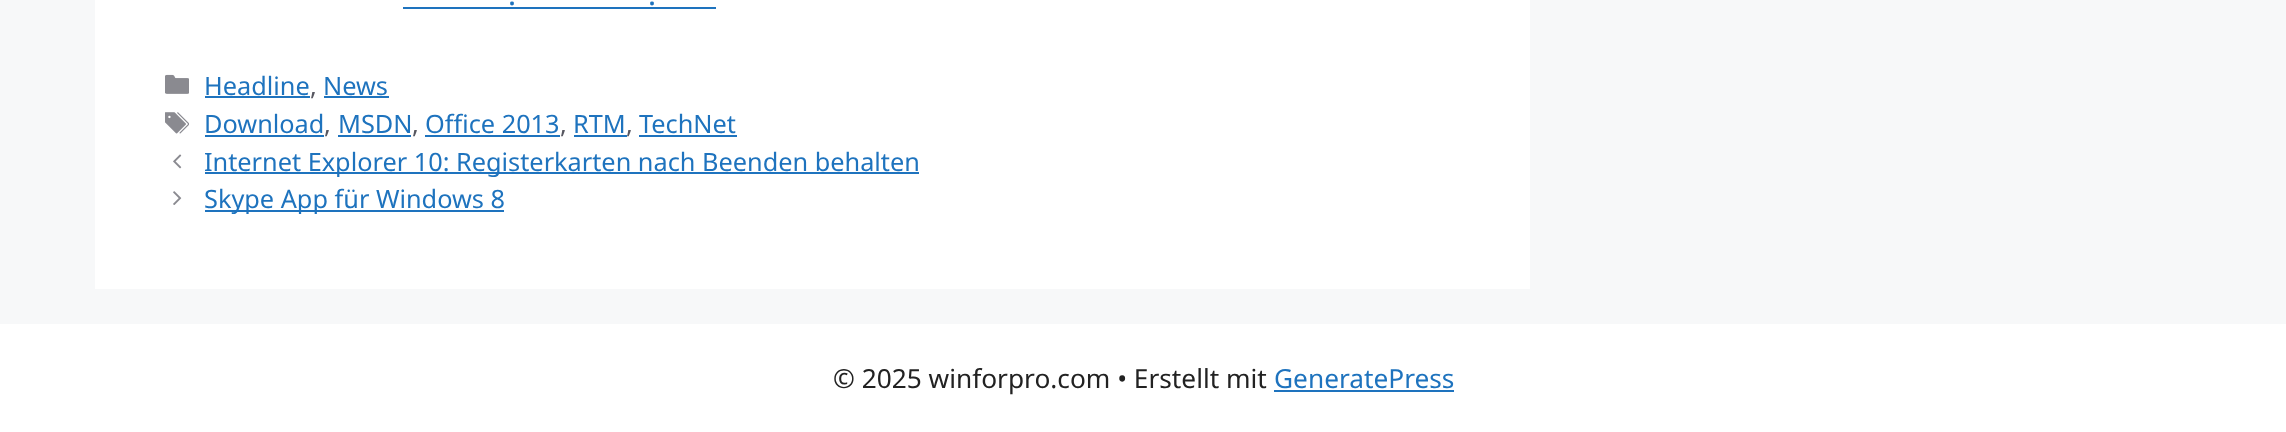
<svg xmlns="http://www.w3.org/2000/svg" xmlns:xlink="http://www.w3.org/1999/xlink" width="2286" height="432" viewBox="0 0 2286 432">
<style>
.cls-1{font:30px Noto Sans;fill:#1e73be}
.cls-2{font:25.3px Noto Sans;fill:#1e73be}
.cls-3{font:25.3px Noto Sans;fill:#575760}
.cls-4{font:26.25px Noto Sans;fill:#222222}
.cls-5{font:26.25px Noto Sans;fill:#1e73be}
</style>
<rect width="100%" height="100%" fill="#f7f8f9"/>
<rect fill="#ffffff" x="95" y="0" width="1435" height="289"/>
<rect fill="#1e73be" x="403" y="7" width="313" height="2"/>
<image xlink:href="image0.png" x="165" y="74" width="24" height="20"/>
<rect fill="#1e73be" x="205" y="96" width="105" height="2"/>
<rect fill="#1e73be" x="324" y="96" width="65" height="2"/>
<image xlink:href="image1.png" x="165" y="112" width="24" height="22"/>
<rect fill="#1e73be" x="205" y="135" width="119" height="2"/>
<rect fill="#1e73be" x="338" y="135" width="73" height="2"/>
<rect fill="#1e73be" x="425" y="135" width="135" height="2"/>
<rect fill="#1e73be" x="574" y="135" width="53" height="2"/>
<rect fill="#1e73be" x="639" y="135" width="98" height="2"/>
<image xlink:href="image2.png" x="173" y="154" width="9" height="15"/>
<rect fill="#1e73be" x="205" y="172" width="714" height="2"/>
<image xlink:href="image3.png" x="173" y="191" width="9" height="14"/>
<rect fill="#1e73be" x="205" y="210" width="299" height="2"/>
<rect fill="#ffffff" x="0" y="324" width="2286" height="108"/>
<rect fill="#1e73be" x="1274" y="390" width="180" height="2"/>
<text class="cls-1" x="508" y="5">.</text>
<text class="cls-1" x="648" y="5">.</text>
<text class="cls-2" x="204" y="95">Headline</text>
<text class="cls-3" x="310" y="95">,</text>
<text class="cls-2" x="323" y="95">News</text>
<text class="cls-2" x="204" y="133">Download</text>
<text class="cls-3" x="324" y="133">,</text>
<text class="cls-2" x="338" y="133">MSDN</text>
<text class="cls-3" x="412" y="133">,</text>
<text class="cls-2" x="425" y="133">Office 2013</text>
<text class="cls-3" x="560" y="133">,</text>
<text class="cls-2" x="573" y="133">RTM</text>
<text class="cls-3" x="626" y="133">,</text>
<text class="cls-2" x="639" y="133">TechNet</text>
<text class="cls-2"><tspan x="204" y="171">Internet Explorer 10: Registerkarten nach Beenden behalten</tspan><tspan x="204" y="208">Skype App für Windows 8</tspan></text>
<text class="cls-4" x="833" y="388">© 2025 winforpro.com • Erstellt mit</text>
<text class="cls-5" x="1274" y="388">GeneratePress</text>
</svg>
